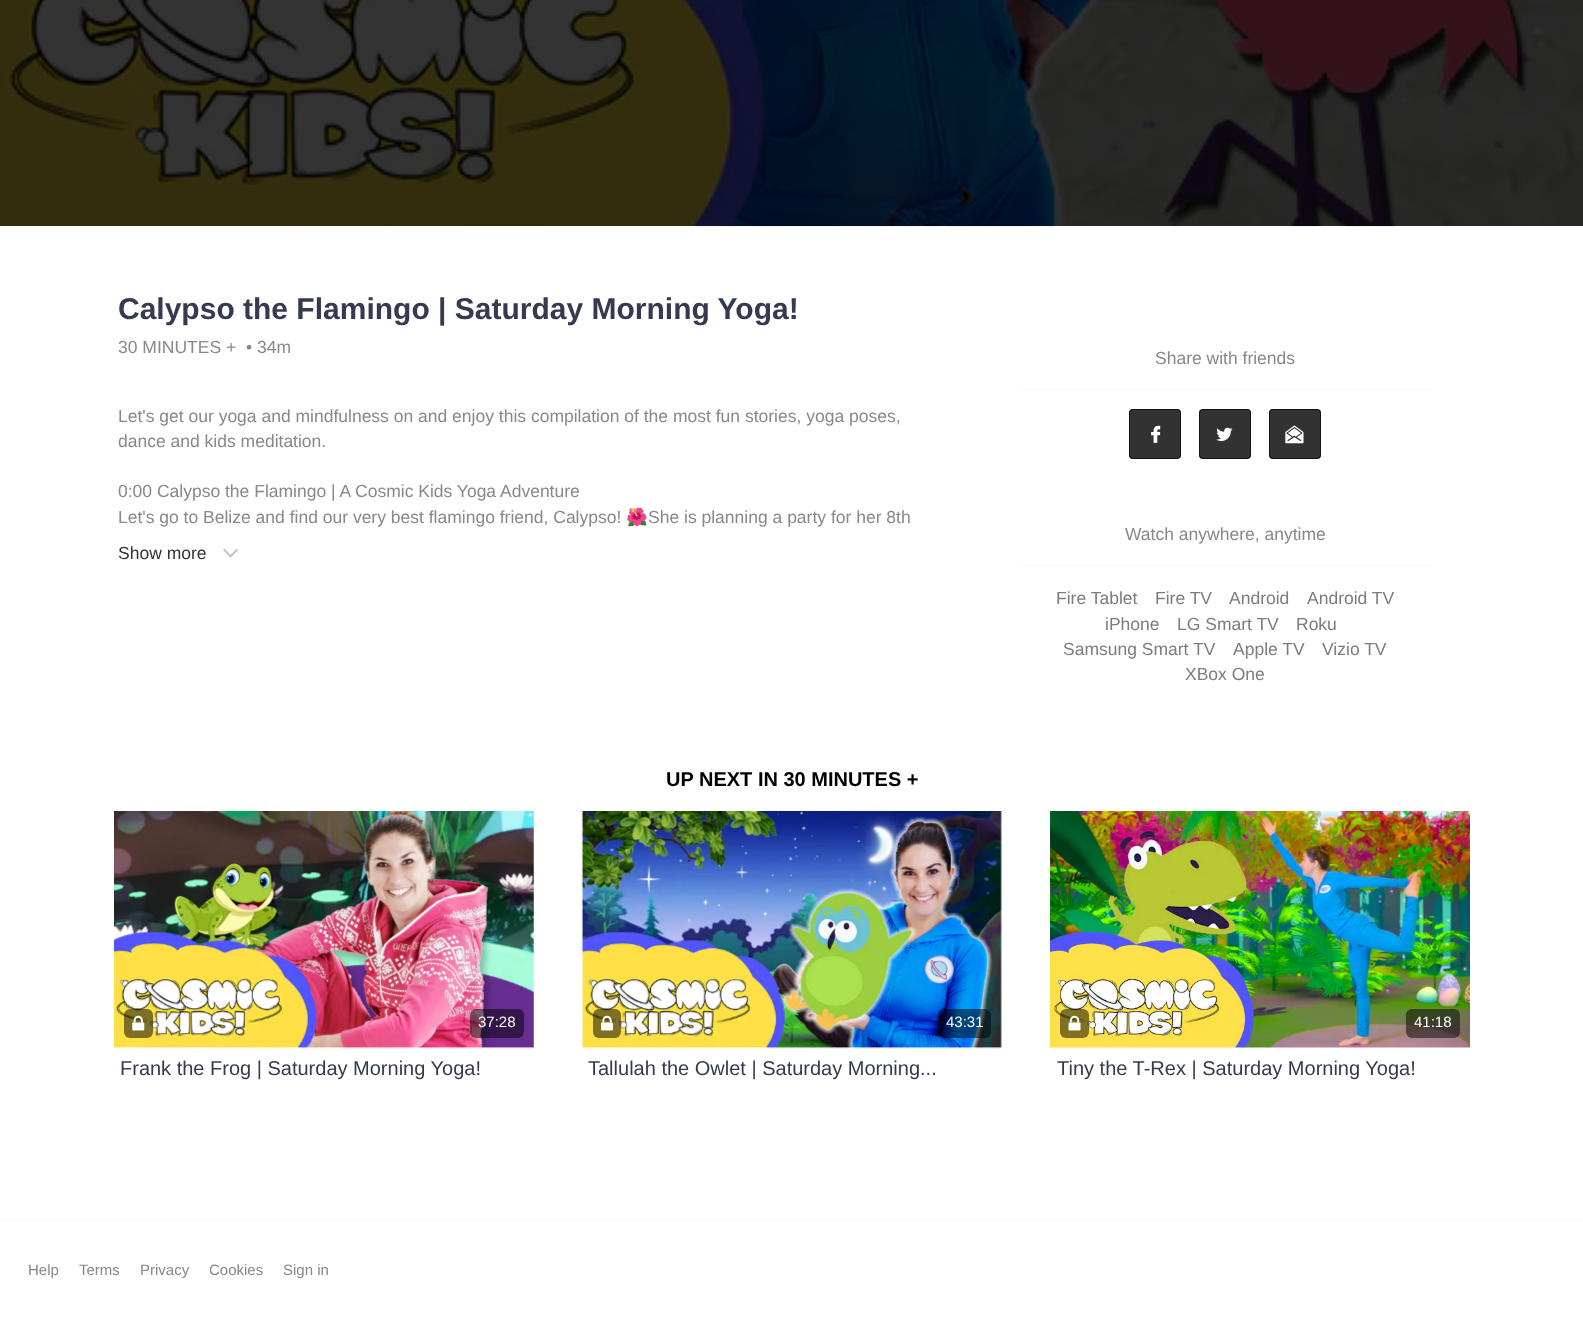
<svg xmlns="http://www.w3.org/2000/svg" xmlns:xlink="http://www.w3.org/1999/xlink" width="1583" height="1320" viewBox="0 0 1583 1320">
<style>
.cls-1{font:bold 30px Liberation Sans;fill:#343b4f}
.cls-2{font:17.5px Liberation Sans;fill:#888888}
.cls-3{font:17.5px Noto Color Emoji;fill:#888888}
.cls-4{font:17.5px Liberation Sans;fill:#333333}
.cls-5{font:17.5px Liberation Sans;fill:#7c7c7c}
.cls-6{font:bold 20px Liberation Sans;fill:#000000}
.cls-7{font:15px Liberation Sans;fill:#ffffff}
.cls-8{font:20px Liberation Sans;fill:#343b4f}
.cls-9{font:15px Liberation Sans;fill:#888888}
</style>
<rect width="100%" height="100%" fill="#ffffff"/>
<image xlink:href="image0.png" x="0" y="0" width="1583" height="227"/>
<image xlink:href="image1.png" x="223" y="548" width="15" height="10"/>
<rect fill="#fafaf6" x="1019" y="389" width="412" height="1"/>
<rect fill="#323232" x="1129" y="409" width="52" height="50" rx="4"/>
<image xlink:href="image2.png" x="1151" y="425" width="10" height="18"/>
<rect fill="none" stroke="#141414" x="1129.5" y="409.5" width="51" height="49" rx="3.5"/>
<rect fill="#323232" x="1199" y="409" width="52" height="50" rx="4"/>
<image xlink:href="image3.png" x="1216" y="427" width="17" height="14"/>
<rect fill="none" stroke="#141414" x="1199.5" y="409.5" width="51" height="49" rx="3.5"/>
<rect fill="#323232" x="1269" y="409" width="52" height="50" rx="4"/>
<image xlink:href="image4.png" x="1285" y="425" width="19" height="19"/>
<rect fill="none" stroke="#141414" x="1269.5" y="409.5" width="51" height="49" rx="3.5"/>
<rect fill="#fafaf6" x="1019" y="565" width="412" height="1"/>
<image xlink:href="image5.png" x="114" y="811" width="420" height="238"/>
<rect fill="#000000" fill-opacity="0.5" x="124" y="1009" width="29" height="29" rx="6"/>
<image xlink:href="image6.png" x="132" y="1015" width="13" height="16"/>
<rect fill="#000000" fill-opacity="0.5" x="470" y="1009" width="54" height="29" rx="6"/>
<image xlink:href="image7.png" x="581" y="811" width="421" height="238"/>
<rect fill="#000000" fill-opacity="0.5" x="593" y="1009" width="28" height="29" rx="6"/>
<image xlink:href="image8.png" x="601" y="1015" width="13" height="16"/>
<rect fill="#000000" fill-opacity="0.5" x="938" y="1009" width="53" height="29" rx="6"/>
<image xlink:href="image9.png" x="1050" y="811" width="420" height="237"/>
<rect fill="#000000" fill-opacity="0.5" x="1060" y="1009" width="29" height="29" rx="6"/>
<image xlink:href="image10.png" x="1068" y="1015" width="13" height="16"/>
<rect fill="#000000" fill-opacity="0.5" x="1406" y="1009" width="54" height="29" rx="6"/>
<rect fill="#fafaf6" x="0" y="1219" width="1583" height="1"/>
<text class="cls-1" x="118" y="319">Calypso the Flamingo | Saturday Morning Yoga!</text>
<text class="cls-2" x="118" y="353">30 MINUTES +</text>
<text class="cls-2" x="246" y="353">• 34m</text>
<text class="cls-2"><tspan x="118" y="422">Let's get our yoga and mindfulness on and enjoy this compilation of the most fun stories, yoga poses,</tspan><tspan x="118" y="447">dance and kids meditation.</tspan></text>
<text class="cls-2"><tspan x="118" y="497">0:00 Calypso the Flamingo | A Cosmic Kids Yoga Adventure</tspan><tspan x="118" y="523">Let's go to Belize and find our very best flamingo friend, Calypso!</tspan></text>
<text class="cls-3" x="626" y="523">🌺</text>
<text class="cls-2" x="648" y="523">She is planning a party for her 8th</text>
<text class="cls-4" x="118" y="559">Show more</text>
<text class="cls-2" x="1155" y="364">Share with friends</text>
<text class="cls-2" x="1125" y="540">Watch anywhere, anytime</text>
<text class="cls-5" x="1056" y="604">Fire Tablet</text>
<text class="cls-5" x="1155" y="604">Fire TV</text>
<text class="cls-5" x="1229" y="604">Android</text>
<text class="cls-5" x="1307" y="604">Android TV</text>
<text class="cls-5" x="1105" y="630">iPhone</text>
<text class="cls-5" x="1177" y="630">LG Smart TV</text>
<text class="cls-5" x="1296" y="630">Roku</text>
<text class="cls-5" x="1063" y="655">Samsung Smart TV</text>
<text class="cls-5" x="1233" y="655">Apple TV</text>
<text class="cls-5" x="1322" y="655">Vizio TV</text>
<text class="cls-5" x="1185" y="680">XBox One</text>
<text class="cls-6" x="666" y="786">UP NEXT IN 30 MINUTES +</text>
<text class="cls-7" x="478" y="1027">37:28</text>
<text class="cls-8" x="120" y="1075">Frank the Frog | Saturday Morning Yoga!</text>
<text class="cls-7" x="946" y="1027">43:31</text>
<text class="cls-8" x="588" y="1075">Tallulah the Owlet | Saturday Morning...</text>
<text class="cls-7" x="1414" y="1027">41:18</text>
<text class="cls-8" x="1057" y="1075">Tiny the T-Rex | Saturday Morning Yoga!</text>
<text class="cls-9" x="28" y="1275">Help</text>
<text class="cls-9" x="79" y="1275">Terms</text>
<text class="cls-9" x="140" y="1275">Privacy</text>
<text class="cls-9" x="209" y="1275">Cookies</text>
<text class="cls-9" x="283" y="1275">Sign in</text>
</svg>
